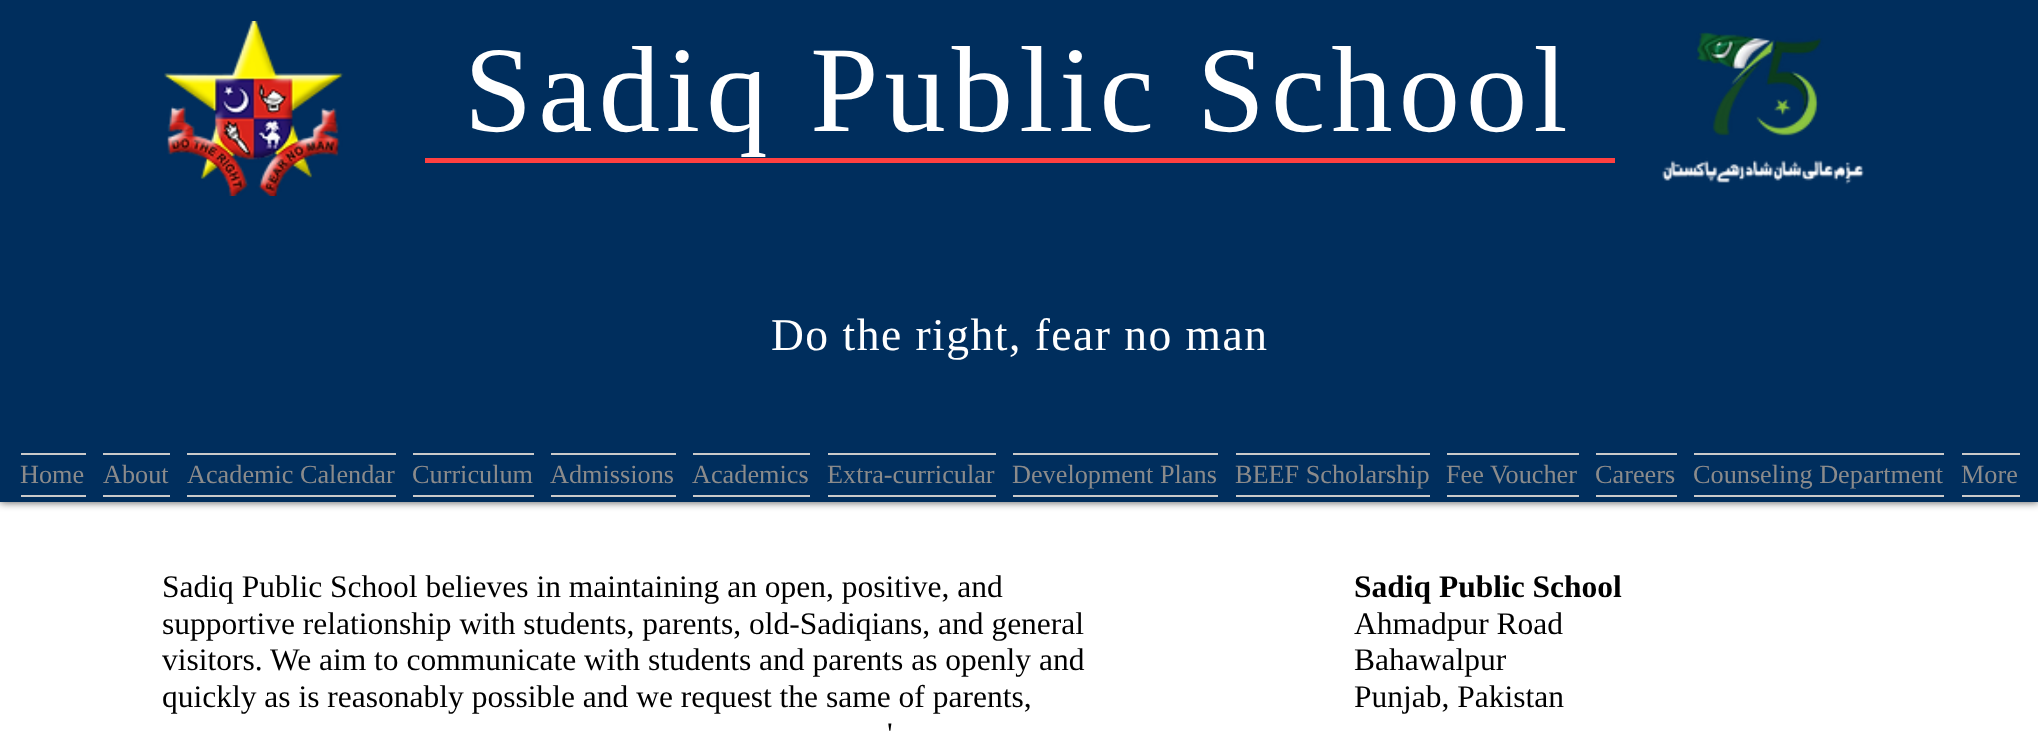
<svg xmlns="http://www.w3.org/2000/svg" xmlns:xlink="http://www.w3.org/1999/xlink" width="2038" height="735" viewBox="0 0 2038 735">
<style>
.cls-1{font:122.5px Liberation Serif;letter-spacing:6.1px;fill:#ffffff}
.cls-2{font:45.5px Liberation Serif;letter-spacing:1.5px;fill:#ffffff}
.cls-3{font:26.25px Liberation Serif;fill:#8b8b8b}
.cls-4{font:31.5px Liberation Serif;fill:#000000}
.cls-5{font:bold 31.5px Liberation Serif;fill:#000000}
</style>
<rect width="100%" height="100%" fill="#ffffff"/>
<rect fill="#000000" fill-opacity="0.7" filter="blur(4.5px)" x="0" y="0" width="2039" height="502"/>
<rect fill="#002e5d" x="0" y="0" width="2038" height="502"/>
<image xlink:href="image0.png" x="164" y="21" width="180" height="175"/>
<image xlink:href="image1.png" x="1662" y="32" width="202" height="153"/>
<rect fill="#ff4040" x="425" y="158" width="1190" height="5"/>
<rect fill="#cacaca" x="21" y="453" width="65" height="2"/>
<rect fill="#cacaca" x="21" y="495" width="65" height="2"/>
<rect fill="#cacaca" x="103" y="453" width="67" height="2"/>
<rect fill="#cacaca" x="103" y="495" width="67" height="2"/>
<rect fill="#cacaca" x="187" y="453" width="209" height="2"/>
<rect fill="#cacaca" x="187" y="495" width="209" height="2"/>
<rect fill="#cacaca" x="413" y="453" width="121" height="2"/>
<rect fill="#cacaca" x="413" y="495" width="121" height="2"/>
<rect fill="#cacaca" x="551" y="453" width="125" height="2"/>
<rect fill="#cacaca" x="551" y="495" width="125" height="2"/>
<rect fill="#cacaca" x="693" y="453" width="117" height="2"/>
<rect fill="#cacaca" x="693" y="495" width="117" height="2"/>
<rect fill="#cacaca" x="828" y="453" width="168" height="2"/>
<rect fill="#cacaca" x="828" y="495" width="168" height="2"/>
<rect fill="#cacaca" x="1013" y="453" width="205" height="2"/>
<rect fill="#cacaca" x="1013" y="495" width="205" height="2"/>
<rect fill="#cacaca" x="1236" y="453" width="194" height="2"/>
<rect fill="#cacaca" x="1236" y="495" width="194" height="2"/>
<rect fill="#cacaca" x="1447" y="453" width="132" height="2"/>
<rect fill="#cacaca" x="1447" y="495" width="132" height="2"/>
<rect fill="#cacaca" x="1596" y="453" width="81" height="2"/>
<rect fill="#cacaca" x="1596" y="495" width="81" height="2"/>
<rect fill="#cacaca" x="1694" y="453" width="250" height="2"/>
<rect fill="#cacaca" x="1694" y="495" width="250" height="2"/>
<rect fill="#cacaca" x="1962" y="453" width="58" height="2"/>
<rect fill="#cacaca" x="1962" y="495" width="58" height="2"/>
<text class="cls-1" x="464" y="131">Sadiq Public School</text>
<text class="cls-2" x="771" y="350">Do the right, fear no man</text>
<text class="cls-3" x="20" y="483">Home</text>
<text class="cls-3" x="103" y="483">About</text>
<text class="cls-3" x="187" y="483">Academic Calendar</text>
<text class="cls-3" x="412" y="483">Curriculum</text>
<text class="cls-3" x="550" y="483">Admissions</text>
<text class="cls-3" x="692" y="483">Academics</text>
<text class="cls-3" x="827" y="483">Extra-curricular</text>
<text class="cls-3" x="1012" y="483">Development Plans</text>
<text class="cls-3" x="1235" y="483">BEEF Scholarship</text>
<text class="cls-3" x="1446" y="483">Fee Voucher</text>
<text class="cls-3" x="1595" y="483">Careers</text>
<text class="cls-3" x="1693" y="483">Counseling Department</text>
<text class="cls-3" x="1961" y="483">More</text>
<text class="cls-4"><tspan x="162" y="597">Sadiq Public School believes in maintaining an open, positive, and</tspan><tspan x="162" y="634">supportive relationship with students, parents, old-Sadiqians, and general</tspan><tspan x="162" y="670">visitors. We aim to communicate with students and parents as openly and</tspan><tspan x="162" y="707">quickly as is reasonably possible and we request the same of parents,</tspan></text>
<text class="cls-4" x="887" y="744">'</text>
<text class="cls-5" x="1354" y="597">Sadiq Public School</text>
<text class="cls-4"><tspan x="1354" y="634">Ahmadpur Road</tspan><tspan x="1354" y="670">Bahawalpur</tspan><tspan x="1354" y="707">Punjab, Pakistan</tspan></text>
</svg>
